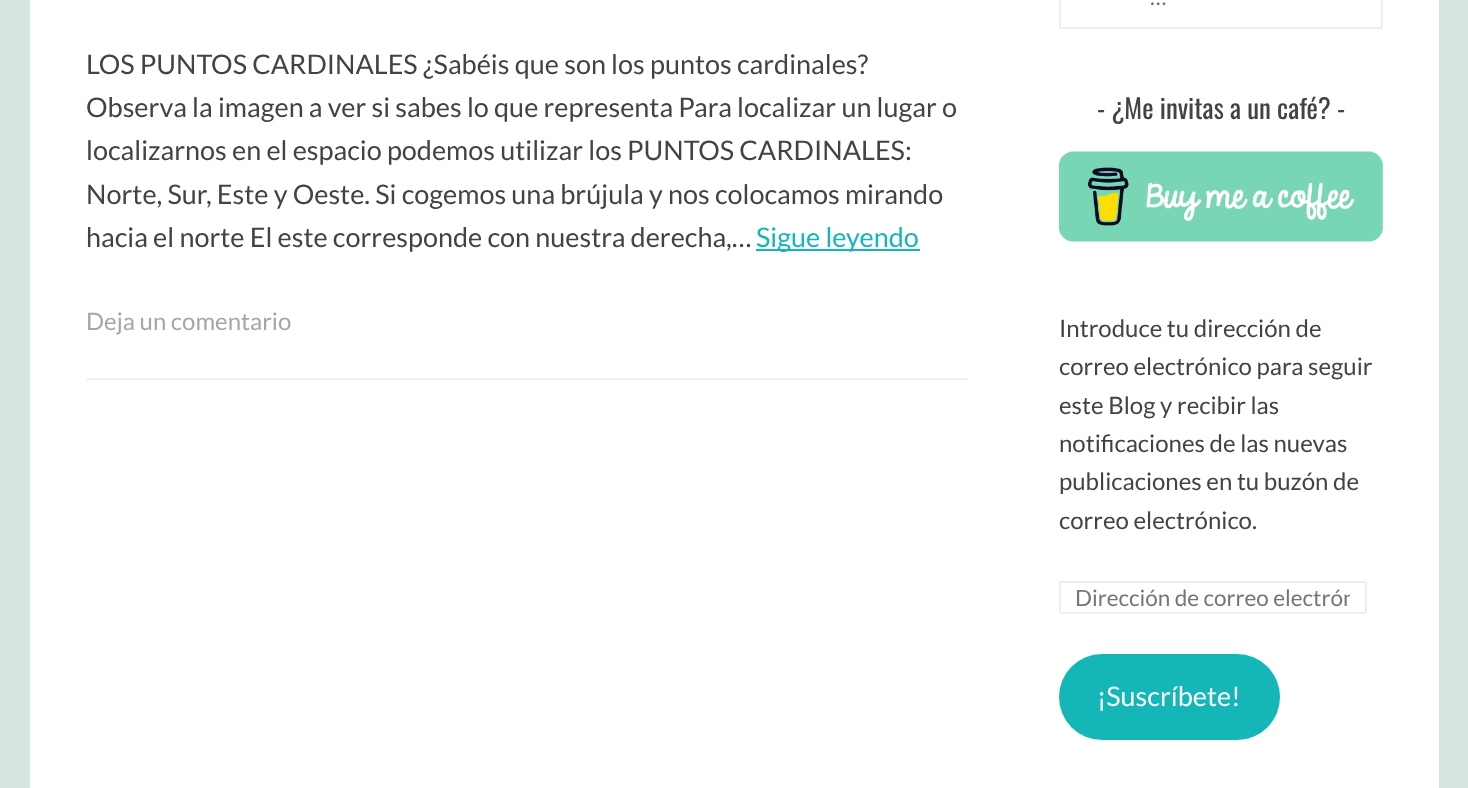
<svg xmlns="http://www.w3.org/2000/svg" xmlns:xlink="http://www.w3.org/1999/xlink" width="1468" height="788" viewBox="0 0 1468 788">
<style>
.cls-1{font:27px Lato;fill:#444340}
.cls-2{font:27px Lato;fill:#15b6b8}
.cls-3{font:24px Lato;fill:#a8a6a1}
.cls-4{font:22.5px Lato;fill:#757575}
.cls-5{font:27px Oswald;fill:#444340}
.cls-6{font:24px Lato;fill:#444340}
.cls-7{font:27px Lato;fill:#ffffff}
</style>
<defs>
<clipPath id="clip1"><rect x="1076" y="584" width="274" height="27"/></clipPath>
</defs>
<rect width="100%" height="100%" fill="#d8e4e2"/>
<rect fill="#ffffff" x="30" y="0" width="1409" height="788"/>
<rect fill="#15b6b8" x="756" y="249" width="164" height="2"/>
<rect fill="#f2f2f2" x="86" y="378" width="882" height="2"/>
<rect fill="none" stroke="#eeeeee" stroke-width="2" x="1060" y="-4" width="322" height="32" rx="2"/>
<image xlink:href="image0.png" x="1059" y="151" width="324" height="91"/>
<rect fill="none" stroke="#eeeeee" stroke-width="2" x="1060" y="582" width="306" height="31" rx="2"/>
<rect fill="#15b6b8" x="1059" y="654" width="221" height="86" rx="43"/>
<text class="cls-1"><tspan x="86" y="74">LOS PUNTOS CARDINALES ¿Sabéis que son los puntos cardinales?</tspan><tspan x="86" y="117">Observa la imagen a ver si sabes lo que representa Para localizar un lugar o</tspan><tspan x="86" y="160">localizarnos en el espacio podemos utilizar los PUNTOS CARDINALES:</tspan><tspan x="86" y="204">Norte, Sur, Este y Oeste. Si cogemos una brújula y nos colocamos mirando</tspan><tspan x="86" y="247">hacia el norte El este corresponde con nuestra derecha,…</tspan></text>
<text class="cls-2" x="756" y="247">Sigue leyendo</text>
<text class="cls-3" x="86" y="330">Deja un comentario</text>
<text class="cls-4" x="1150" y="5">…</text>
<text class="cls-5" x="1097" y="119">- ¿Me invitas a un café? -</text>
<text class="cls-6"><tspan x="1059" y="337">Introduce tu dirección de</tspan><tspan x="1059" y="375">correo electrónico para seguir</tspan><tspan x="1059" y="414">este Blog y recibir las</tspan><tspan x="1059" y="452">notificaciones de las nuevas</tspan><tspan x="1059" y="490">publicaciones en tu buzón de</tspan><tspan x="1059" y="529">correo electrónico.</tspan></text>
<g clip-path="url(#clip1)">
<text class="cls-4" x="1075" y="606">Dirección de correo electrón</text>
</g>
<text class="cls-7" x="1097" y="706">¡Suscríbete!</text>
</svg>
